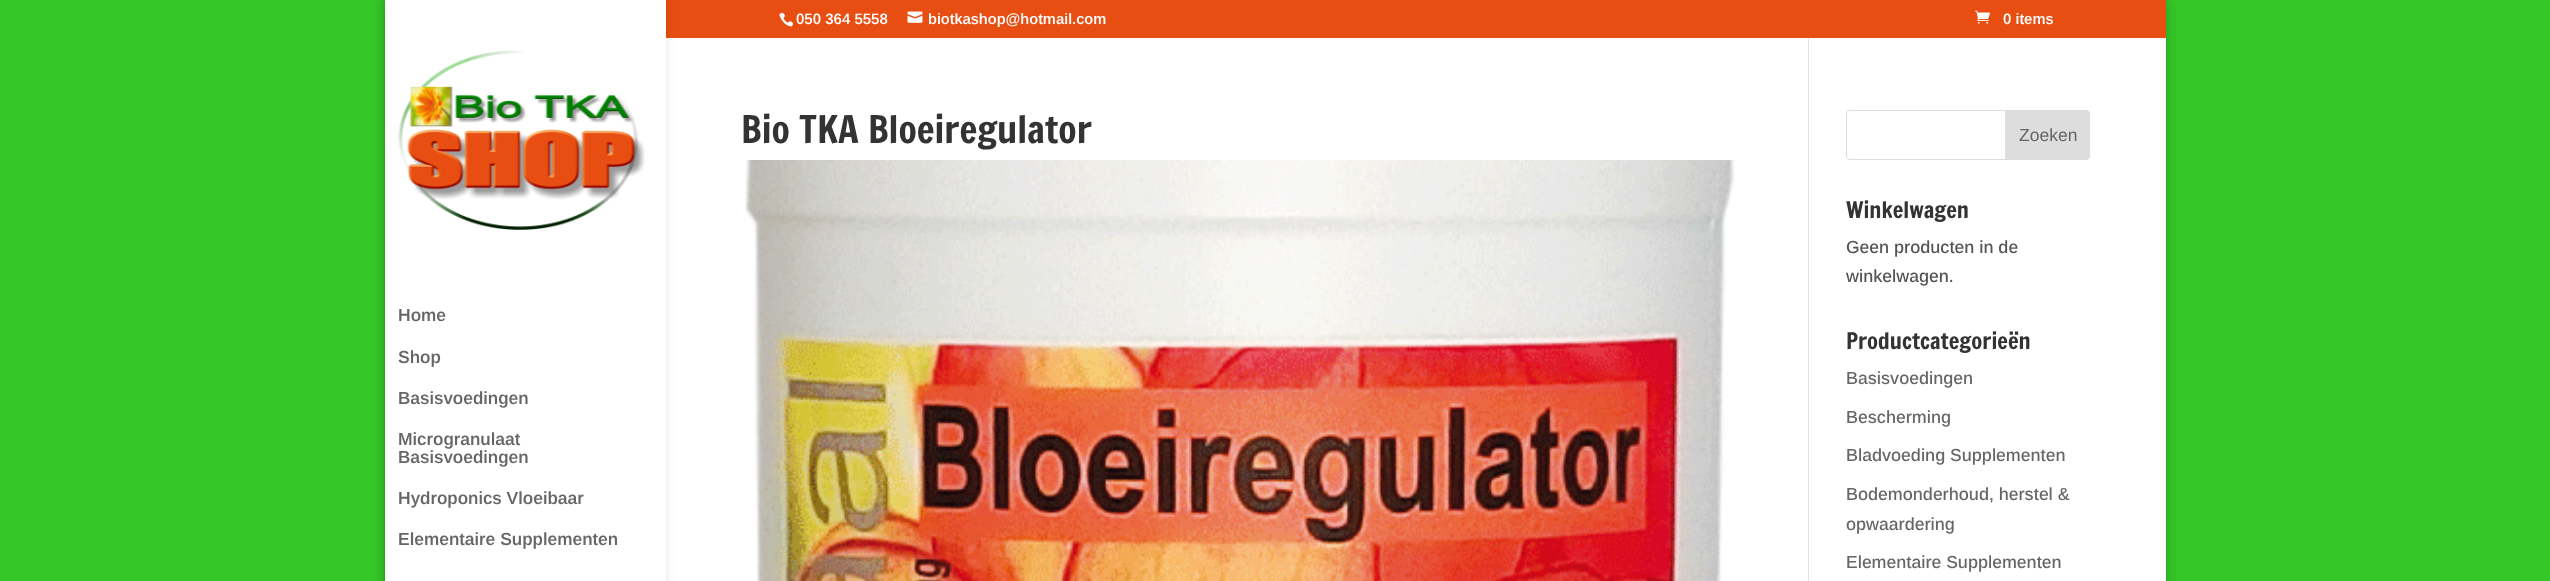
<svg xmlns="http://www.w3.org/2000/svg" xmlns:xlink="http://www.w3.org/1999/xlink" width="2550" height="581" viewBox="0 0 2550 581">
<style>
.cls-1{font:600 15px Arimo;fill:#ffffff}
.cls-2{font:600 17.5px Arimo;fill:#666666}
.cls-3{font:37.5px Francois One;fill:#333333}
.cls-4{font:17.5px Arimo;fill:#666666}
.cls-5{font:22.5px Francois One;fill:#333333}
.cls-6{font:500 17.5px Arimo;fill:#545454}
.cls-7{font:500 17.5px Arimo;fill:#666666}
</style>
<rect width="100%" height="100%" fill="#35c627"/>
<rect fill="#000000" fill-opacity="0.2" filter="blur(6px)" x="385" y="-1" width="1781" height="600"/>
<rect fill="#e84e11" x="666" y="0" width="1500" height="38"/>
<image xlink:href="image0.png" x="779" y="12" width="15" height="15"/>
<image xlink:href="image1.png" x="907" y="11" width="16" height="12"/>
<image xlink:href="image2.png" x="1975" y="10" width="15" height="14"/>
<rect fill="#ffffff" x="666" y="38" width="1500" height="543"/>
<rect fill="#000000" fill-opacity="0.1" filter="blur(4.5px)" x="385" y="0" width="281" height="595"/>
<rect fill="#ffffff" x="385" y="0" width="281" height="581"/>
<image xlink:href="image3.png" x="398" y="50" width="247" height="180"/>
<rect fill="#e2e2e2" x="1808" y="38" width="1" height="543"/>
<image xlink:href="image4.png" x="745" y="160" width="990" height="421"/>
<rect fill="none" stroke="#dddddd" x="1846.5" y="110.5" width="243" height="49" rx="3.5"/>
<path fill="#dddddd" stroke="#dddddd" d="M2005.5 110.5H2086C2088 110.5 2089.5 112 2089.5 114V156C2089.5 158 2088 159.5 2086 159.5H2005.5Z"/>
<text class="cls-1" x="796" y="24">050 364 5558</text>
<text class="cls-1" x="928" y="24">biotkashop@hotmail.com</text>
<text class="cls-1" x="2003" y="24">0 items</text>
<text class="cls-2" x="398" y="321">Home</text>
<text class="cls-2" x="398" y="363">Shop</text>
<text class="cls-2" x="398" y="404">Basisvoedingen</text>
<text class="cls-2"><tspan x="398" y="445">Microgranulaat</tspan><tspan x="398" y="463">Basisvoedingen</tspan></text>
<text class="cls-2" x="398" y="504">Hydroponics Vloeibaar</text>
<text class="cls-2" x="398" y="545">Elementaire Supplementen</text>
<text class="cls-3" x="741" y="143">Bio TKA Bloeiregulator</text>
<text class="cls-4" x="2019" y="141">Zoeken</text>
<text class="cls-5" x="1846" y="218">Winkelwagen</text>
<text class="cls-6"><tspan x="1846" y="253">Geen producten in de</tspan><tspan x="1846" y="282">winkelwagen.</tspan></text>
<text class="cls-5" x="1846" y="349">Productcategorieën</text>
<text class="cls-7" x="1846" y="384">Basisvoedingen</text>
<text class="cls-7" x="1846" y="423">Bescherming</text>
<text class="cls-7" x="1846" y="461">Bladvoeding Supplementen</text>
<text class="cls-7"><tspan x="1846" y="500">Bodemonderhoud, herstel &amp;</tspan><tspan x="1846" y="530">opwaardering</tspan></text>
<text class="cls-7" x="1846" y="568">Elementaire Supplementen</text>
</svg>
